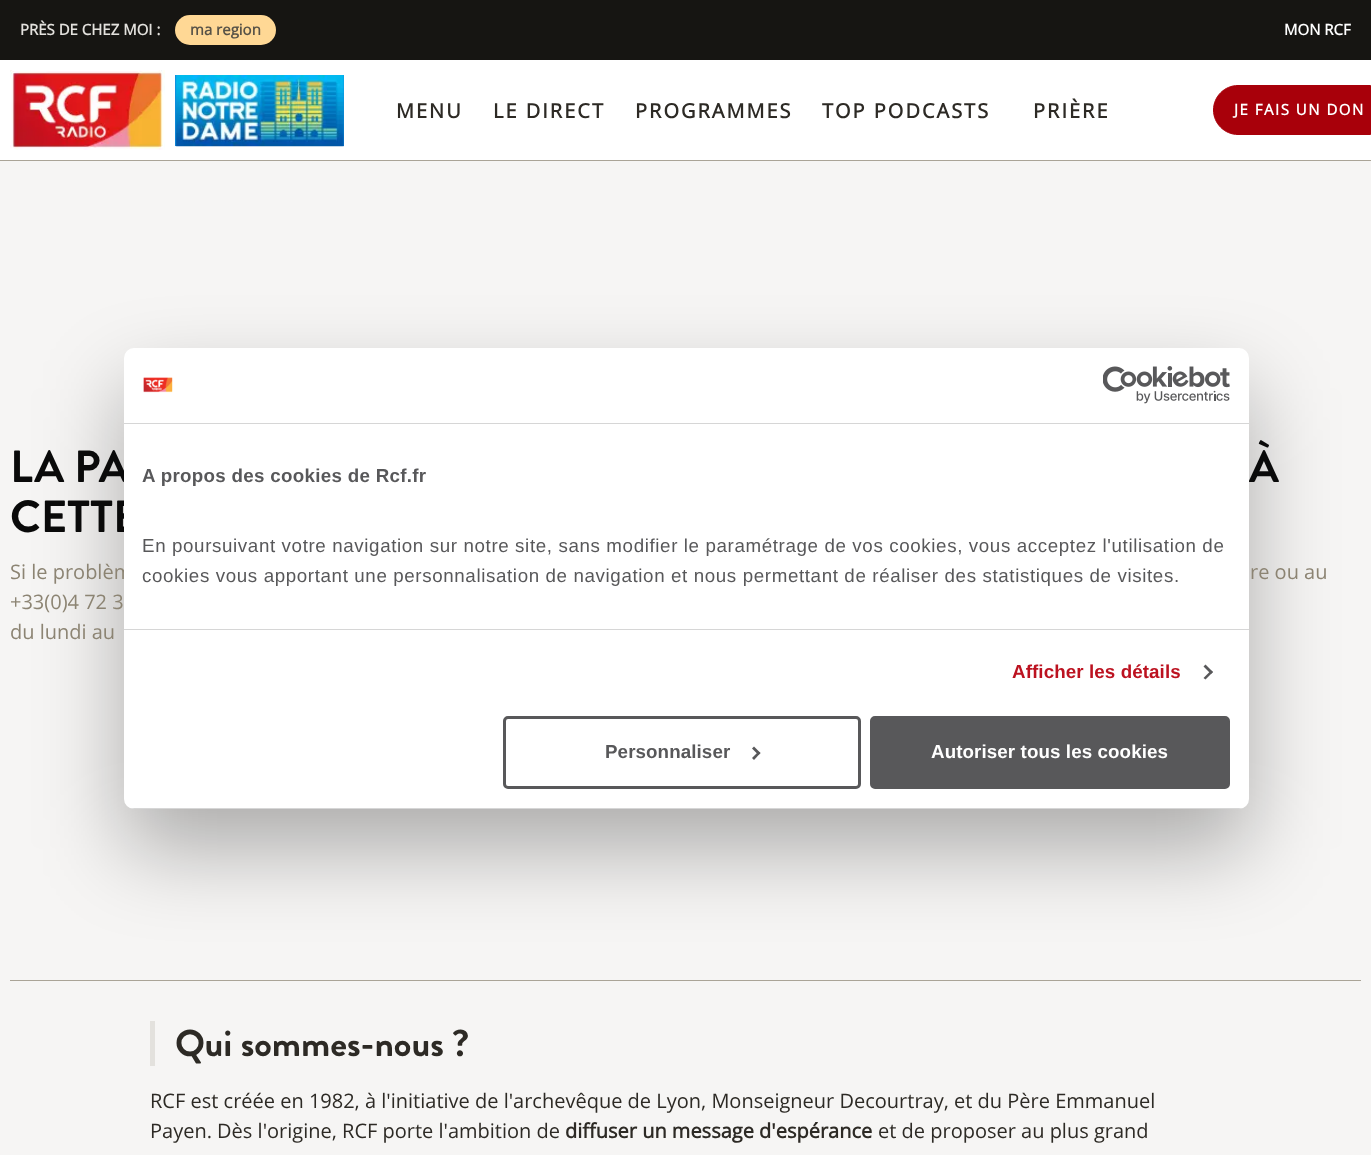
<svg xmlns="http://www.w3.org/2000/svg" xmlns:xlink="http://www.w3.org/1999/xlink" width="1371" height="1155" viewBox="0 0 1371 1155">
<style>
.cls-1{font:bold 15px Open Sans;fill:#e3e1dd}
.cls-2{font:bold 15px Open Sans;fill:#575247}
.cls-3{font:bold 15px Open Sans;fill:#ffffff}
.cls-4{font:bold 20px Open Sans;letter-spacing:2px;fill:#2d2a25}
.cls-5{font:bold 15px Open Sans;letter-spacing:1.5px;fill:#ffffff}
.cls-6{font:bold 45px Brandon Grotesque;fill:#0a0a0a}
.cls-7{font:20px Open Sans;fill:#8c8473}
.cls-8{font:bold 37.5px Brandon Grotesque;fill:#2d2a25}
.cls-9{font:20px Open Sans;fill:#2d2a25}
.cls-10{font:bold 20px Open Sans;fill:#2d2a25}
.cls-11{font:bold 18.75px Liberation Sans;letter-spacing:0.3px;fill:#58585a}
.cls-12{font:18.75px Liberation Sans;letter-spacing:0.62px;fill:#58585a}
.cls-13{font:bold 18.75px Liberation Sans;letter-spacing:0.1px;fill:#bc1220}
.cls-14{font:bold 18.75px Liberation Sans;letter-spacing:0.1px;fill:#58585a}
.cls-15{font:bold 18.75px Liberation Sans;letter-spacing:0.1px;fill:#ffffff}
</style>
<defs>
<clipPath id="clip1"><rect x="124" y="348" width="1125" height="461" rx="10"/></clipPath>
</defs>
<rect width="100%" height="100%" fill="#f6f5f4"/>
<rect fill="#ffffff" x="0" y="60" width="1371" height="100"/>
<rect fill="#aaa497" x="0" y="160" width="1371" height="1"/>
<rect fill="#161512" x="0" y="0" width="1371" height="60"/>
<rect fill="#ffd895" x="175" y="15" width="101" height="30" rx="15"/>
<image xlink:href="image0.png" x="10" y="70" width="155" height="80"/>
<rect fill="#128bdc" x="175" y="75" width="169" height="71"/>
<image xlink:href="image1.png" x="175" y="75" width="169" height="72"/>
<path fill="#a8000a" stroke="#a8000a" d="M1238 85.5H1370.5V134.5H1238C1224.5 134.5 1213.5 123.5 1213.5 110C1213.5 96.5 1224.5 85.5 1238 85.5Z"/>
<rect fill="#aaa497" x="10" y="980" width="1351" height="1"/>
<rect fill="#e3e1dd" x="150" y="1021" width="5" height="45"/>
<rect fill="#000000" fill-opacity="0.3" filter="blur(42.5px)" x="124" y="388" width="1125" height="461" rx="10"/>
<text class="cls-1" x="20" y="35">PRÈS DE CHEZ MOI :</text>
<text class="cls-2" x="190" y="35">ma region</text>
<text class="cls-3" x="1284" y="35">MON RCF</text>
<text class="cls-4" x="396" y="118">MENU</text>
<text class="cls-4" x="493" y="118">LE DIRECT</text>
<text class="cls-4" x="635" y="118">PROGRAMMES</text>
<text class="cls-4" x="822" y="118">TOP PODCASTS</text>
<text class="cls-4" x="1033" y="118">PRIÈRE</text>
<text class="cls-5" x="1234" y="115">JE FAIS UN DON</text>
<text class="cls-6" x="10" y="482">LA PA</text>
<text class="cls-6" x="1249" y="482">À</text>
<text class="cls-6" x="10" y="532">CETTE</text>
<text class="cls-7" x="10" y="579">Si le problèm</text>
<text class="cls-7" x="1250" y="579">re ou au</text>
<text class="cls-7"><tspan x="10" y="609">+33(0)4 72 3</tspan><tspan x="10" y="639">du lundi au</tspan></text>
<text class="cls-8" x="175" y="1056">Qui sommes-nous ?</text>
<text class="cls-9"><tspan x="150" y="1108">RCF est créée en 1982, à l'initiative de l'archevêque de Lyon, Monseigneur Decourtray, et du Père Emmanuel</tspan><tspan x="150" y="1138">Payen. Dès l'origine, RCF porte l'ambition de</tspan></text>
<text class="cls-10" x="565" y="1138">diffuser un message d'espérance</text>
<text class="cls-9" x="878" y="1138">et de proposer au plus grand</text>
<rect fill="#ffffff" x="124" y="348" width="1125" height="461" rx="10"/>
<rect fill="#d6d6d6" x="124" y="423" width="1125" height="1"/>
<image xlink:href="image2.png" x="143" y="377" width="30" height="16"/>
<image xlink:href="image3.png" x="1103" y="366" width="127" height="38"/>
<rect fill="#d6d6d6" x="124" y="629" width="1125" height="1"/>
<text class="cls-11" x="142" y="482">A propos des cookies de Rcf.fr</text>
<text class="cls-12"><tspan x="142" y="552">En poursuivant votre navigation sur notre site, sans modifier le paramétrage de vos cookies, vous acceptez l'utilisation de</tspan><tspan x="142" y="582">cookies vous apportant une personnalisation de navigation et nous permettant de réaliser des statistiques de visites.</tspan></text>
<text class="cls-13" x="1012" y="678">Afficher les détails</text>
<path fill="#58585a" d="M1205.5 664.5L1213 672L1211 674L1203.5 666.5Z"/>
<path fill="#58585a" d="M1211 670.5L1213 672L1205.5 679.5L1203.5 678Z"/>
<g clip-path="url(#clip1)">
<rect fill="#d6d6d6" x="124" y="808" width="1125" height="1"/>
</g>
<rect fill="none" stroke="#58585a" stroke-width="3" x="504.5" y="717.5" width="355" height="70" rx="3.5"/>
<text class="cls-14" x="605" y="758">Personnaliser</text>
<path fill="#58585a" d="M754 746.5L760.5 753L758.5 755L752 748.5Z"/>
<path fill="#58585a" d="M758.5 751.5L760.5 753L754 760L752 758Z"/>
<rect fill="#58585a" stroke="#58585a" stroke-width="3" x="871.5" y="717.5" width="357" height="70" rx="3.5"/>
<text class="cls-15" x="931" y="758">Autoriser tous les cookies</text>
</svg>
